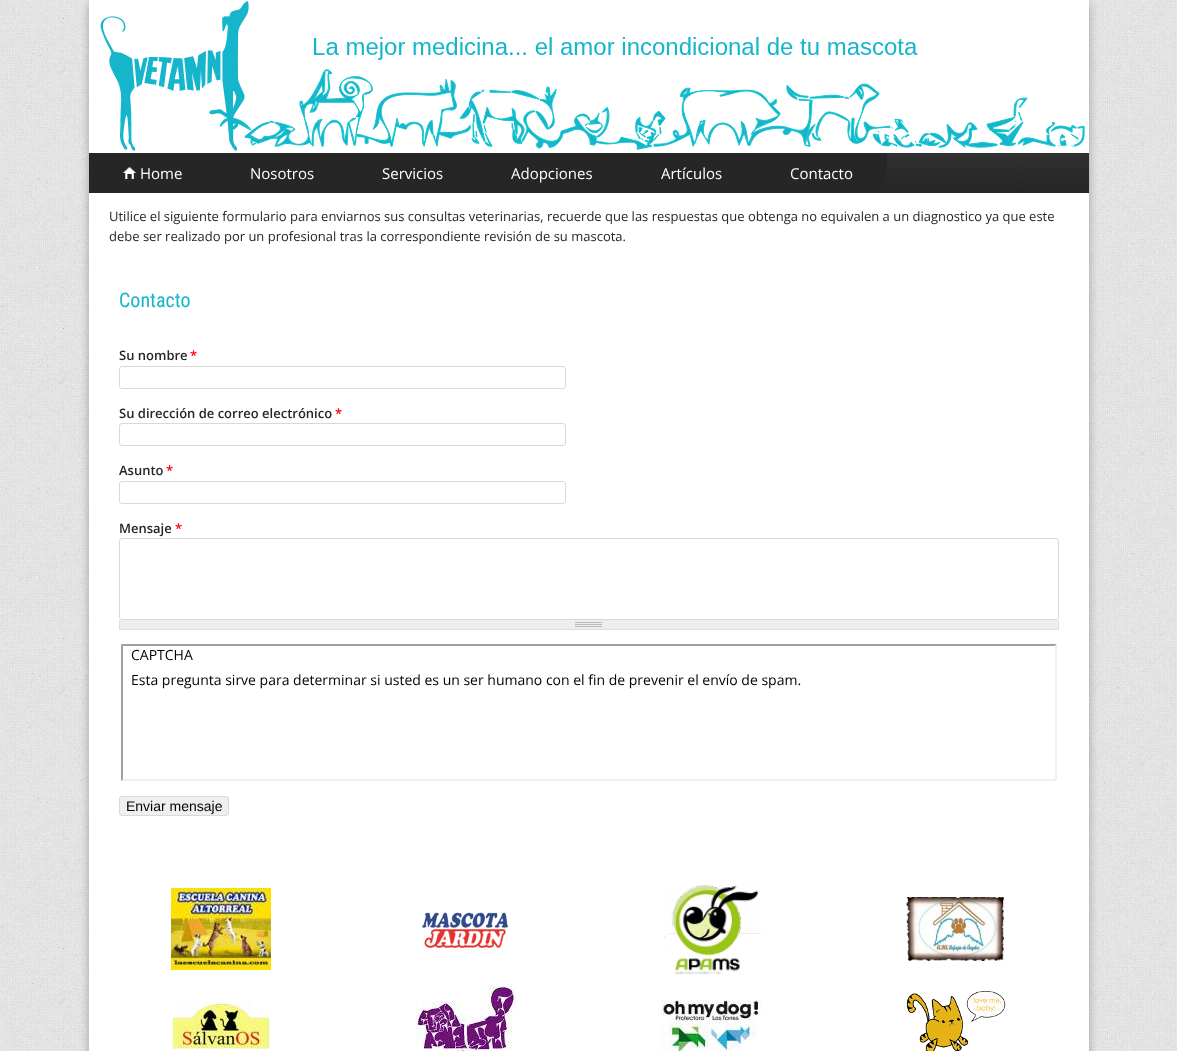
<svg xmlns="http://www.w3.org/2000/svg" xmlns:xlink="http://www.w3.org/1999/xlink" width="1177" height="1051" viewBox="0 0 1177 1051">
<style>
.cls-1{font:15px Open Sans;fill:#ffffff}
.cls-2{font:13px Open Sans;fill:#262626}
.cls-3{font:20px Roboto Condensed;fill:#15b5cb}
.cls-4{font:600 13px Open Sans;fill:#262626}
.cls-5{font:600 13px Open Sans;fill:#ff0000}
.cls-6{font:14px Open Sans;fill:#000000}
.cls-7{font:14px Liberation Sans;fill:#000000}
</style>
<defs>
<linearGradient id="g1" gradientUnits="userSpaceOnUse" x1="589" y1="193" x2="589" y2="153"><stop offset="0" stop-color="#262626"/><stop offset="1" stop-color="#303030"/></linearGradient>
</defs>
<rect width="100%" height="100%" fill="#ffffff"/>
<image xlink:href="image0.png" x="0" y="0" width="1177" height="1051"/>
<rect fill="#000000" fill-opacity="0.3" filter="blur(5px)" x="89" y="4" width="1000" height="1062"/>
<rect fill="#ffffff" x="89" y="0" width="1000" height="1051"/>
<image xlink:href="image1.png" x="219" y="37" width="866" height="113"/>
<image xlink:href="image2.png" x="100" y="1" width="149" height="150"/>
<rect fill="url(#g1)" x="887" y="153" width="202" height="40"/>
<rect fill="#262626" x="89" y="153" width="798" height="40"/>
<image xlink:href="image3.png" x="123" y="167" width="13" height="12"/>
<rect fill="none" stroke="#d9d9d9" x="119.5" y="366.5" width="446" height="22" rx="2.5"/>
<rect fill="none" stroke="#d9d9d9" x="119.5" y="423.5" width="446" height="22" rx="2.5"/>
<rect fill="none" stroke="#d9d9d9" x="119.5" y="481.5" width="446" height="22" rx="2.5"/>
<rect fill="none" stroke="#d9d9d9" x="119.5" y="538.5" width="939" height="81" rx="2.5"/>
<rect fill="#eeeeee" x="120" y="620" width="938" height="9"/>
<image xlink:href="image4.png" x="575" y="622" width="27" height="5"/>
<rect fill="#dddddd" x="1058" y="620" width="1" height="10"/>
<rect fill="#dddddd" x="119" y="629" width="940" height="1"/>
<rect fill="#dddddd" x="119" y="620" width="1" height="10"/>
<path fill="#9f9f9f" d="M121 644H1057L1055 646H123Z"/>
<path fill="#efefef" d="M1057 644V781L1055 779V646Z"/>
<path fill="#efefef" d="M1057 781H121L123 779H1055Z"/>
<path fill="#9f9f9f" d="M121 781V644L123 646V779Z"/>
<rect fill="#efefef" stroke="#d9d9d9" x="119.5" y="796.5" width="109" height="19" rx="2.5"/>
<image xlink:href="image5.png" x="171" y="888" width="100" height="82"/>
<image xlink:href="image6.png" x="422" y="912" width="87" height="36"/>
<image xlink:href="image7.png" x="663" y="885" width="98" height="89"/>
<image xlink:href="image8.png" x="906" y="897" width="98" height="64"/>
<image xlink:href="image9.png" x="171" y="1002" width="100" height="47"/>
<image xlink:href="image10.png" x="416" y="985" width="100" height="66"/>
<image xlink:href="image11.png" x="661" y="1000" width="100" height="51"/>
<image xlink:href="image12.png" x="906" y="991" width="100" height="60"/>
<text class="cls-1" x="140" y="179">Home</text>
<text class="cls-1" x="250" y="179">Nosotros</text>
<text class="cls-1" x="382" y="179">Servicios</text>
<text class="cls-1" x="511" y="179">Adopciones</text>
<text class="cls-1" x="661" y="179">Artículos</text>
<text class="cls-1" x="790" y="179">Contacto</text>
<text class="cls-2"><tspan x="109" y="221">Utilice el siguiente formulario para enviarnos sus consultas veterinarias, recuerde que las respuestas que obtenga no equivalen a un diagnostico ya que este</tspan><tspan x="109" y="241">debe ser realizado por un profesional tras la correspondiente revisión de su mascota.</tspan></text>
<text class="cls-3" x="119" y="307">Contacto</text>
<text class="cls-4" x="119" y="360">Su nombre</text>
<text class="cls-5" x="190" y="360">*</text>
<text class="cls-4" x="119" y="418">Su dirección de correo electrónico</text>
<text class="cls-5" x="335" y="418">*</text>
<text class="cls-4" x="119" y="475">Asunto</text>
<text class="cls-5" x="166" y="475">*</text>
<text class="cls-4" x="119" y="533">Mensaje</text>
<text class="cls-5" x="175" y="533">*</text>
<text class="cls-6"><tspan x="131" y="660">CAPTCHA</tspan><tspan x="131" y="685">Esta pregunta sirve para determinar si usted es un ser humano con el fin de prevenir el envío de spam.</tspan></text>
<text class="cls-7" x="126" y="811">Enviar mensaje</text>
</svg>
